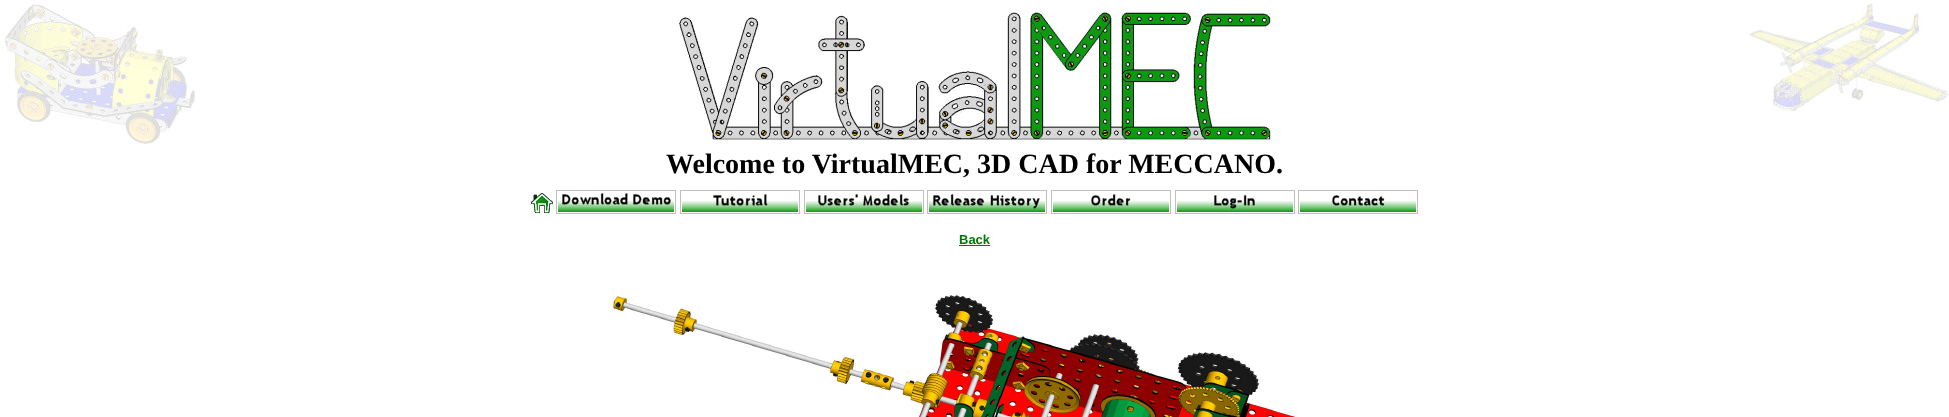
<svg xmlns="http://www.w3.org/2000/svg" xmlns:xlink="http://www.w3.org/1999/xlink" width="1949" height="417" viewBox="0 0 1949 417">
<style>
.cls-1{font:bold 28px Liberation Serif;fill:#000000}
.cls-2{font:bold 13px Liberation Sans;fill:#007a02}
</style>
<rect width="100%" height="100%" fill="#ffffff"/>
<image xlink:href="image0.png" x="1749" y="3" width="200" height="109"/>
<image xlink:href="image1.png" x="3" y="4" width="192" height="140"/>
<image xlink:href="image2.png" x="679" y="12" width="592" height="131"/>
<image xlink:href="image3.png" x="531" y="193" width="22" height="20"/>
<image xlink:href="image4.png" x="556" y="190" width="120" height="24"/>
<image xlink:href="image5.png" x="680" y="190" width="120" height="24"/>
<image xlink:href="image6.png" x="804" y="190" width="120" height="24"/>
<image xlink:href="image7.png" x="927" y="190" width="120" height="24"/>
<image xlink:href="image8.png" x="1051" y="190" width="120" height="24"/>
<image xlink:href="image9.png" x="1175" y="190" width="120" height="24"/>
<image xlink:href="image10.png" x="1298" y="190" width="120" height="24"/>
<rect fill="#007a02" x="959" y="245" width="31" height="1"/>
<image xlink:href="image11.png" x="613" y="294" width="685" height="123"/>
<text class="cls-1" x="666" y="173">Welcome to VirtualMEC, 3D CAD for MECCANO.</text>
<text class="cls-2" x="959" y="244">Back</text>
</svg>
